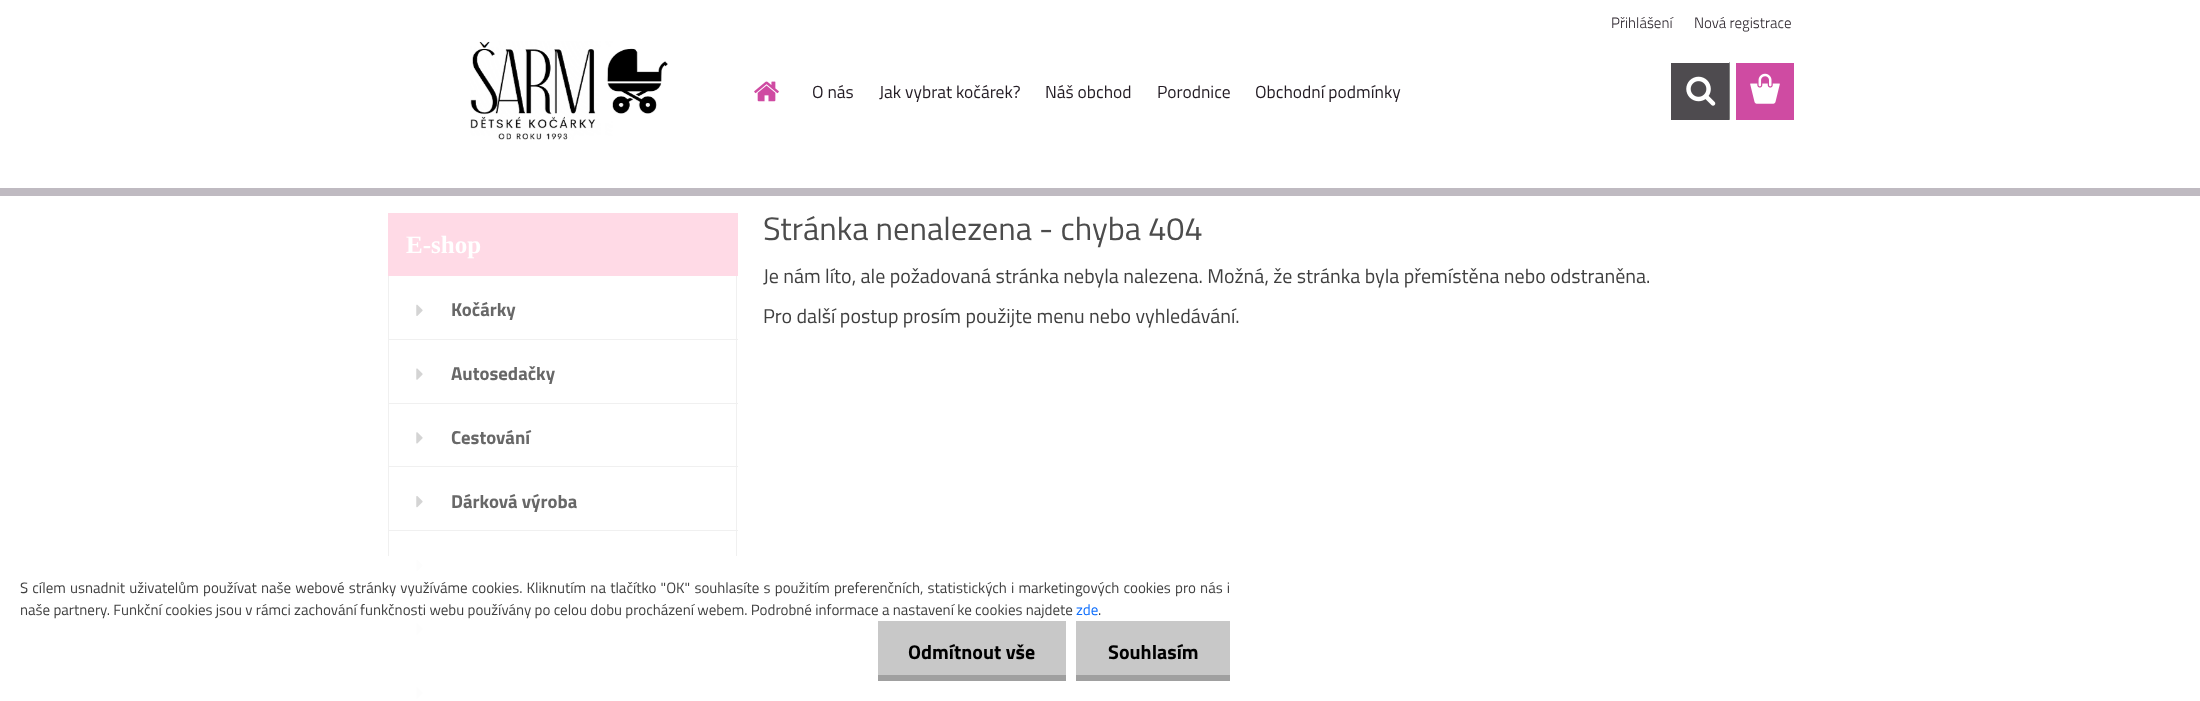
<svg xmlns="http://www.w3.org/2000/svg" xmlns:xlink="http://www.w3.org/1999/xlink" width="2200" height="701" viewBox="0 0 2200 701">
<style>
.cls-1{font:300 15px Titillium Web;fill:#231c24}
.cls-2{font:bold 25px Liberation Serif;fill:#ffffff}
.cls-3{font:bold 18.75px Titillium Web;fill:#686868}
.cls-4{font:32.5px Titillium Web;fill:#4c4c4c}
.cls-5{font:20px Titillium Web;fill:#3f3f3f}
.cls-6{font:17.5px Titillium Web;fill:#231c24}
.cls-7{font:15px Titillium Web;fill:#3f3f3f}
.cls-8{font:15px Titillium Web;fill:#0d6efd}
.cls-9{font:bold 20px Titillium Web;fill:#000000}
</style>
<rect width="100%" height="100%" fill="#ffffff"/>
<rect fill="#cf4ba2" x="1736" y="63" width="58" height="57"/>
<image xlink:href="image0.png" x="1750" y="73" width="30" height="31"/>
<rect fill="#ffdae6" x="388" y="213" width="350" height="63"/>
<rect fill="#f0f0f0" x="736" y="276" width="1" height="280"/>
<rect fill="#f0f0f0" x="388" y="339" width="350" height="1"/>
<rect fill="#f0f0f0" x="388" y="276" width="1" height="64"/>
<image xlink:href="image1.png" x="416" y="304" width="7" height="12"/>
<rect fill="#f0f0f0" x="388" y="403" width="350" height="1"/>
<rect fill="#f0f0f0" x="388" y="340" width="1" height="64"/>
<image xlink:href="image2.png" x="416" y="368" width="7" height="12"/>
<rect fill="#f0f0f0" x="388" y="466" width="350" height="1"/>
<rect fill="#f0f0f0" x="388" y="404" width="1" height="64"/>
<image xlink:href="image3.png" x="416" y="432" width="7" height="12"/>
<rect fill="#f0f0f0" x="388" y="530" width="350" height="1"/>
<rect fill="#f0f0f0" x="388" y="468" width="1" height="88"/>
<image xlink:href="image4.png" x="416" y="496" width="7" height="12"/>
<image xlink:href="image5.png" x="416" y="559" width="7" height="12"/>
<image xlink:href="image6.png" x="416" y="623" width="7" height="12"/>
<image xlink:href="image7.png" x="416" y="687" width="7" height="12"/>
<rect fill="#bfbac1" x="0" y="188" width="2200" height="8"/>
<image xlink:href="image8.png" x="470" y="41" width="198" height="99"/>
<image xlink:href="image9.png" x="754" y="81" width="25" height="21"/>
<rect fill="#4e4b4f" x="1671" y="63" width="58" height="57"/>
<image xlink:href="image10.png" x="1686" y="76" width="30" height="30"/>
<path fill="#808080" d="M1729 62.5H1730V64ZM1730 120H1729L1730 119Z"/>
<path fill="#000000" fill-opacity="0.5" d="M1729 120V62L1730 64V119Z"/>
<rect fill="#c8c8c8" x="878" y="621" width="188" height="54"/>
<rect fill="#a0a0a0" x="878" y="675" width="188" height="6"/>
<rect fill="#c8c8c8" x="1076" y="621" width="154" height="54"/>
<rect fill="#a0a0a0" x="1076" y="675" width="154" height="6"/>
<text class="cls-1" x="1611" y="28">Přihlášení</text>
<text class="cls-1" x="1694" y="28">Nová registrace</text>
<text class="cls-2" x="406" y="253">E-shop</text>
<text class="cls-3" x="451" y="316">Kočárky</text>
<text class="cls-3" x="451" y="380">Autosedačky</text>
<text class="cls-3" x="451" y="444">Cestování</text>
<text class="cls-3" x="451" y="508">Dárková výroba</text>
<text class="cls-4" x="763" y="240">Stránka nenalezena - chyba 404</text>
<text class="cls-5" x="763" y="283">Je nám líto, ale požadovaná stránka nebyla nalezena. Možná, že stránka byla přemístěna nebo odstraněna.</text>
<text class="cls-5" x="763" y="323">Pro další postup prosím použijte menu nebo vyhledávání.</text>
<text class="cls-6" x="812" y="98">O nás</text>
<text class="cls-6" x="879" y="98">Jak vybrat kočárek?</text>
<text class="cls-6" x="1045" y="98">Náš obchod</text>
<text class="cls-6" x="1157" y="98">Porodnice</text>
<text class="cls-6" x="1255" y="98">Obchodní podmínky</text>
<text class="cls-7"><tspan x="20" y="593" word-spacing="0.9">S cílem usnadnit uživatelům používat naše webové stránky využíváme cookies. Kliknutím na tlačítko "OK" souhlasíte s použitím preferenčních, statistických i marketingových cookies pro nás i</tspan><tspan x="20" y="615">naše partnery. Funkční cookies jsou v rámci zachování funkčnosti webu používány po celou dobu procházení webem. Podrobné informace a nastavení ke cookies najdete</tspan></text>
<text class="cls-8" x="1076" y="615">zde</text>
<text class="cls-7" x="1098" y="615">.</text>
<text class="cls-9" x="908" y="659">Odmítnout vše</text>
<text class="cls-9" x="1108" y="659">Souhlasím</text>
</svg>
